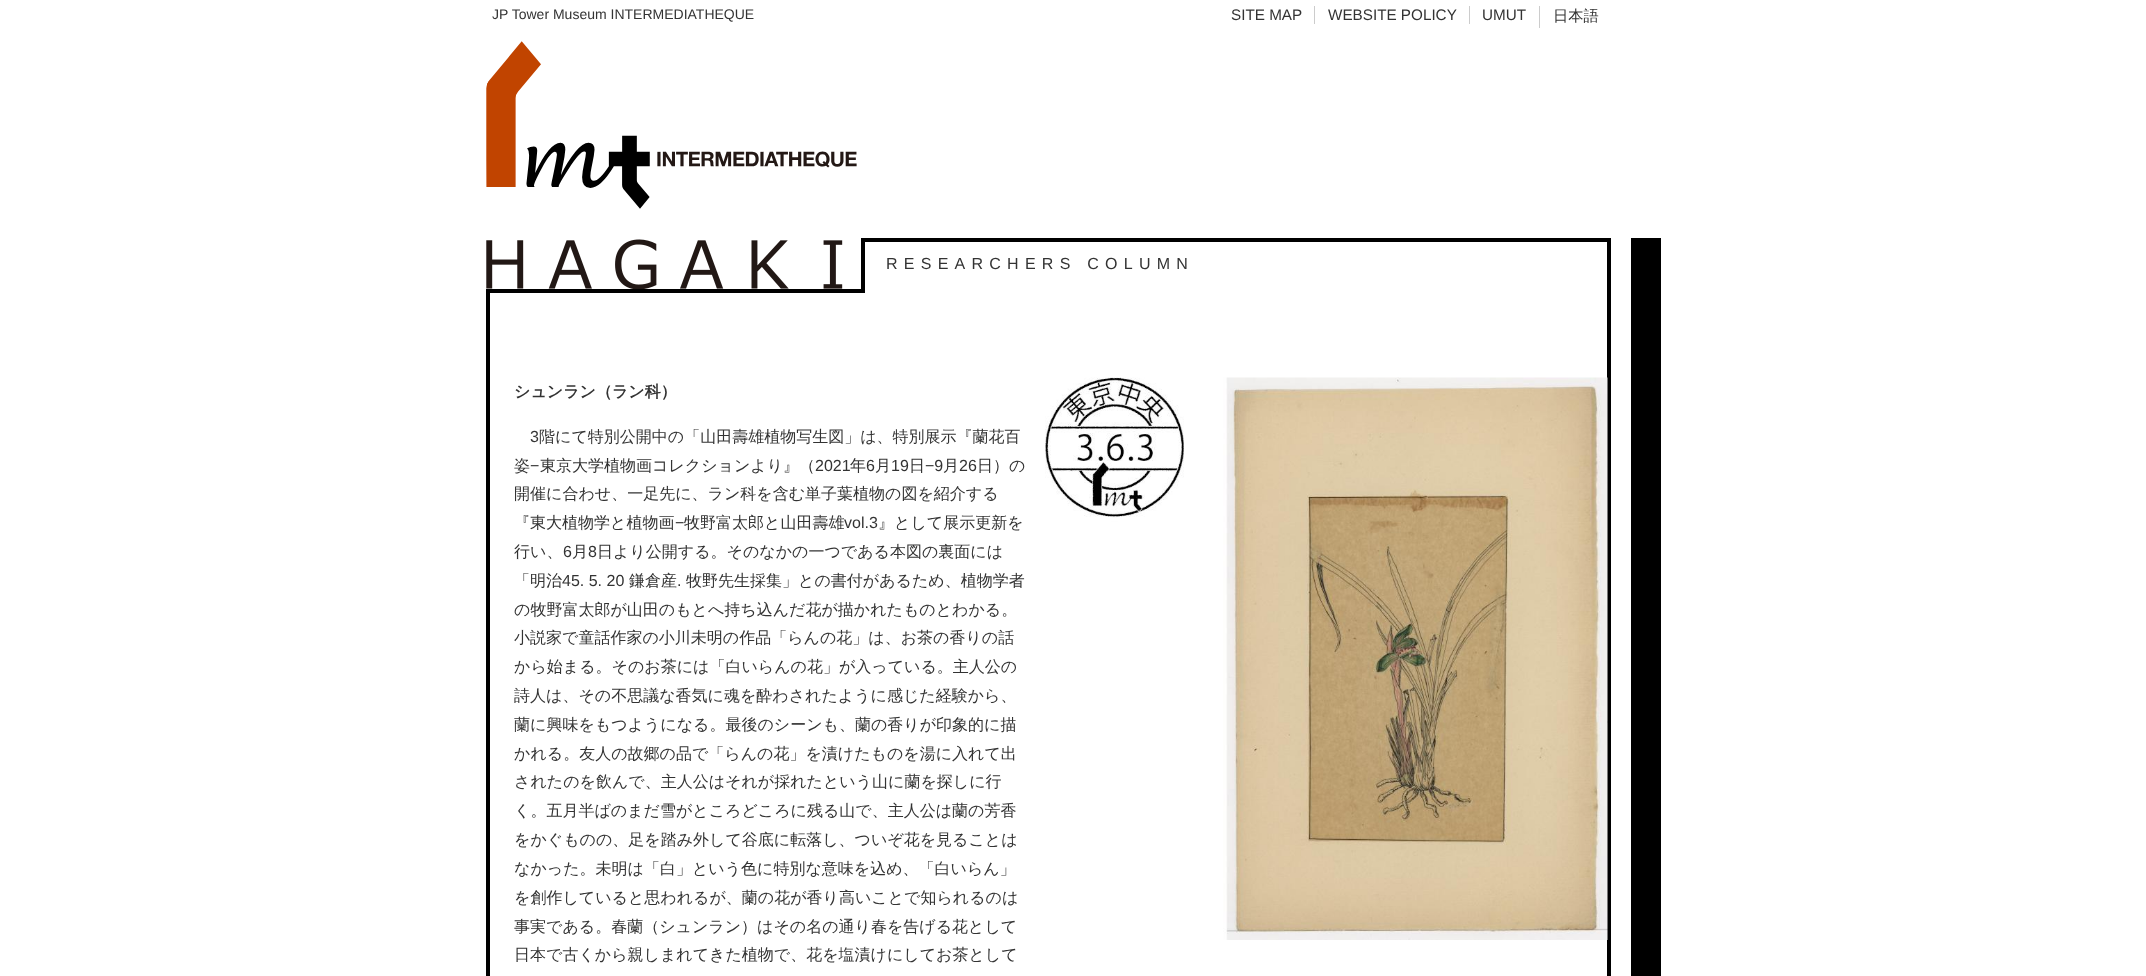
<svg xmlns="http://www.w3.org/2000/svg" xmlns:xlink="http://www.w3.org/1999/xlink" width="2146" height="976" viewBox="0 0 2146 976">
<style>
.cls-1{font:14px Liberation Sans;fill:#333333}
.cls-2{font:15.25px Liberation Sans;fill:#333333}
.cls-3{font:500 15.25px WenQuanYi Zen Hei;fill:#333333}
.cls-4{font:16px Liberation Sans;letter-spacing:6.25px;fill:#333333}
.cls-5{font:bold 16px WenQuanYi Zen Hei;fill:#333333}
.cls-6{font:16px Liberation Sans;fill:#333333}
.cls-7{font:500 16px WenQuanYi Zen Hei;fill:#333333}
</style>
<rect width="100%" height="100%" fill="#ffffff"/>
<rect fill="#cccccc" x="1314" y="6" width="1" height="18"/>
<rect fill="#cccccc" x="1469" y="6" width="1" height="18"/>
<rect fill="#cccccc" x="1539" y="6" width="1" height="22"/>
<image xlink:href="image0.png" x="486" y="41" width="371" height="168"/>
<rect fill="none" stroke="#000000" stroke-width="4" x="488" y="240" width="1121" height="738"/>
<rect fill="#ffffff" x="486" y="238" width="375" height="51"/>
<rect fill="#000000" x="861" y="238" width="4" height="55"/>
<rect fill="#000000" x="486" y="289" width="379" height="4"/>
<image xlink:href="image1.png" x="486" y="239" width="357" height="50"/>
<image xlink:href="image2.png" x="1045" y="377" width="563" height="563"/>
<rect fill="#000000" x="1631" y="238" width="30" height="738"/>
<text class="cls-1" x="492" y="19">JP Tower Museum INTERMEDIATHEQUE</text>
<text class="cls-2" x="1231" y="20">SITE MAP</text>
<text class="cls-2" x="1328" y="20">WEBSITE POLICY</text>
<text class="cls-2" x="1482" y="20">UMUT</text>
<text class="cls-3" x="1553" y="21">日本語</text>
<text class="cls-4" x="886" y="269">RESEARCHERS COLUMN</text>
<text class="cls-5" x="514" y="397">シュンラン（ラン科）</text>
<text class="cls-6" x="530" y="442">3</text>
<text class="cls-7" x="539" y="442">階にて特別公開中の「山田壽雄植物写生図」は、特別展示『蘭花百</text>
<text class="cls-7" x="514" y="471">姿</text>
<text class="cls-6" x="530" y="471">−</text>
<text class="cls-7" x="540" y="471">東京大学植物画コレクションより』（</text>
<text class="cls-6" x="815" y="471">2021</text>
<text class="cls-7" x="850" y="471">年</text>
<text class="cls-6" x="866" y="471">6</text>
<text class="cls-7" x="875" y="471">月</text>
<text class="cls-6" x="891" y="471">19</text>
<text class="cls-7" x="909" y="471">日</text>
<text class="cls-6" x="925" y="471">−9</text>
<text class="cls-7" x="943" y="471">月</text>
<text class="cls-6" x="959" y="471">26</text>
<text class="cls-7" x="977" y="471">日）の</text>
<text class="cls-7"><tspan x="514" y="499">開催に合わせ、一足先に、ラン科を含む単子葉植物の図を紹介する</tspan><tspan x="514" y="528">『東大植物学と植物画</tspan></text>
<text class="cls-6" x="675" y="528">−</text>
<text class="cls-7" x="684" y="528">牧野富太郎と山田壽雄</text>
<text class="cls-6" x="844" y="528">vol.3</text>
<text class="cls-7" x="878" y="528">』として展示更新を</text>
<text class="cls-7" x="514" y="557">行い、</text>
<text class="cls-6" x="563" y="557">6</text>
<text class="cls-7" x="572" y="557">月</text>
<text class="cls-6" x="588" y="557">8</text>
<text class="cls-7" x="597" y="557">日より公開する。そのなかの一つである本図の裏面には</text>
<text class="cls-7" x="514" y="586">「明治</text>
<text class="cls-6" x="562" y="586">45. 5. 20</text>
<text class="cls-7" x="629" y="586">鎌倉産</text>
<text class="cls-6" x="677" y="586">.</text>
<text class="cls-7" x="686" y="586">牧野先生採集」との書付があるため、植物学者</text>
<text class="cls-7"><tspan x="514" y="615">の牧野富太郎が山田のもとへ持ち込んだ花が描かれたものとわかる。</tspan><tspan x="514" y="643">小説家で童話作家の小川未明の作品「らんの花」は、お茶の香りの話</tspan><tspan x="514" y="672">から始まる。そのお茶には「白いらんの花」が入っている。主人公の</tspan><tspan x="514" y="701">詩人は、その不思議な香気に魂を酔わされたように感じた経験から、</tspan><tspan x="514" y="730">蘭に興味をもつようになる。最後のシーンも、蘭の香りが印象的に描</tspan><tspan x="514" y="759">かれる。友人の故郷の品で「らんの花」を漬けたものを湯に入れて出</tspan><tspan x="514" y="787">されたのを飲んで、主人公はそれが採れたという山に蘭を探しに行</tspan><tspan x="514" y="816">く。五月半ばのまだ雪がところどころに残る山で、主人公は蘭の芳香</tspan><tspan x="514" y="845">をかぐものの、足を踏み外して谷底に転落し、ついぞ花を見ることは</tspan><tspan x="514" y="874">なかった。未明は「白」という色に特別な意味を込め、「白いらん」</tspan><tspan x="514" y="903">を創作していると思われるが、蘭の花が香り高いことで知られるのは</tspan><tspan x="514" y="932">事実である。春蘭（シュンラン）はその名の通り春を告げる花として</tspan><tspan x="514" y="960">日本で古くから親しまれてきた植物で、花を塩漬けにしてお茶として</tspan></text>
</svg>
